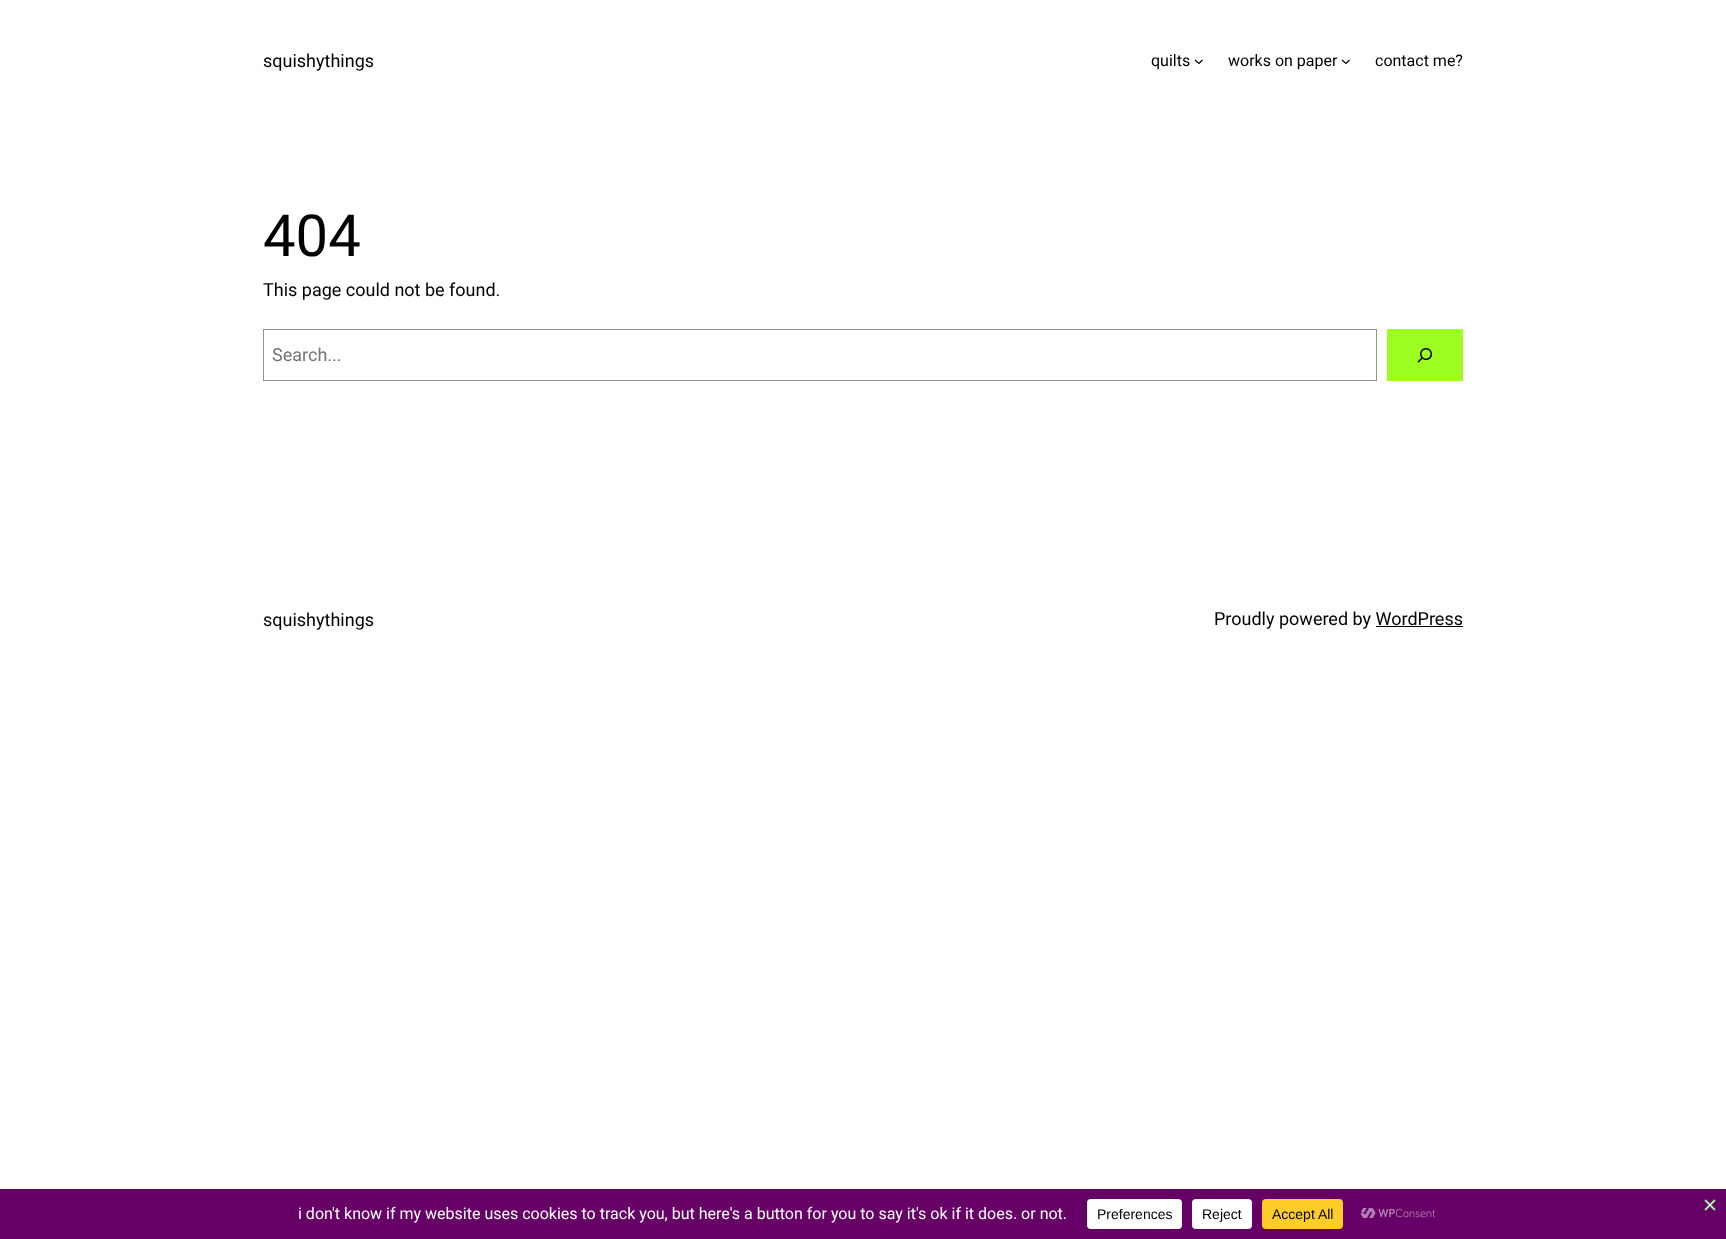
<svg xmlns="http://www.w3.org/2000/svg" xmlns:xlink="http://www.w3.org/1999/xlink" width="1726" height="1239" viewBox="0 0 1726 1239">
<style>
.cls-1{font:18px Roboto;fill:#000000}
.cls-2{font:16px Roboto;fill:#000000}
.cls-3{font:58px Roboto;fill:#000000}
.cls-4{font:18px Roboto;fill:#757575}
.cls-5{font:16px Roboto;fill:#ffffff}
.cls-6{font:14px Liberation Sans;fill:#000000}
</style>
<rect width="100%" height="100%" fill="#ffffff"/>
<path fill="none" stroke="#000000" stroke-width="1.2" d="M1195 60L1199 63.5L1202.5 60"/>
<path fill="none" stroke="#000000" stroke-width="1.2" d="M1342 60L1346 63.5L1349.5 60"/>
<rect fill="none" stroke="#949494" x="263.5" y="329.5" width="1113" height="51"/>
<rect fill="#9dff20" x="1387" y="329" width="76" height="52"/>
<image xlink:href="image0.png" x="1417" y="348" width="16" height="15"/>
<rect fill="#000000" x="1376" y="626" width="87" height="1"/>
<rect fill="#660066" x="0" y="1189" width="1726" height="50"/>
<rect fill="#ffffff" x="1087" y="1199" width="95" height="30" rx="4"/>
<rect fill="#ffffff" x="1192" y="1199" width="60" height="30" rx="4"/>
<rect fill="#ffcd2a" x="1262" y="1199" width="81" height="30" rx="4"/>
<image xlink:href="image1.png" x="1360" y="1208" width="75" height="11"/>
<image xlink:href="image2.png" x="1704" y="1199" width="12" height="12"/>
<text class="cls-1" x="263" y="67">squishythings</text>
<text class="cls-2" x="1151" y="66">quilts</text>
<text class="cls-2" x="1228" y="66">works on paper</text>
<text class="cls-2" x="1375" y="66">contact me?</text>
<text class="cls-3" x="263" y="256">404</text>
<text class="cls-1" x="263" y="296">This page could not be found.</text>
<text class="cls-4" x="272" y="361">Search...</text>
<text class="cls-1" x="263" y="626">squishythings</text>
<text class="cls-1" x="1214" y="625">Proudly powered by WordPress</text>
<text class="cls-5" x="298" y="1219">i don't know if my website uses cookies to track you, but here's a button for you to say it's ok if it does. or not.</text>
<text class="cls-6" x="1097" y="1219">Preferences</text>
<text class="cls-6" x="1202" y="1219">Reject</text>
<text class="cls-6" x="1272" y="1219">Accept All</text>
</svg>
